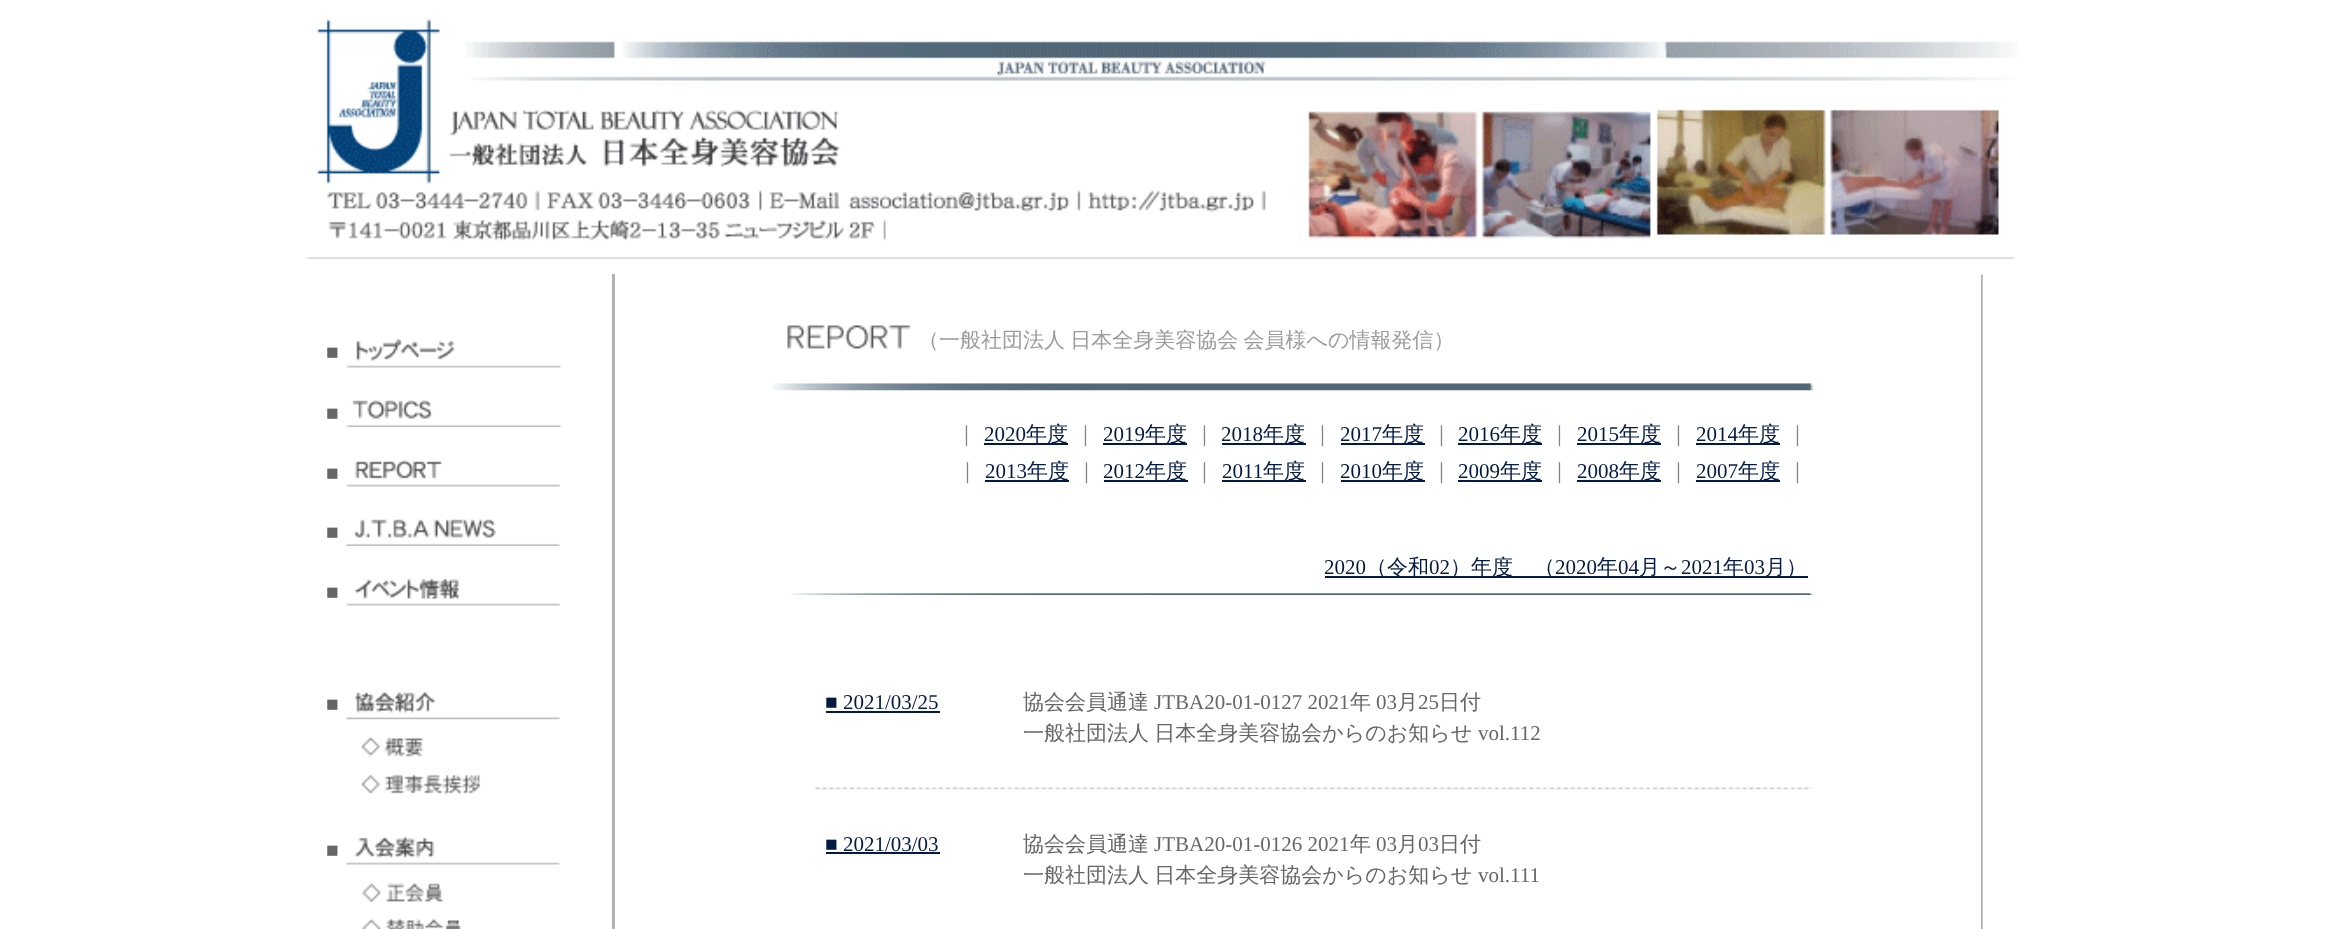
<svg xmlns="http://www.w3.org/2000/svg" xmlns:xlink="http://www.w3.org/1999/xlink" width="2329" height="929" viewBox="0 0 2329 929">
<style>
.cls-1{font:21px Liberation Serif;fill:#666666}
.cls-2{font:500 21px WenQuanYi Zen Hei;fill:#9c9a9c}
.cls-3{font:500 21px WenQuanYi Zen Hei;fill:#848284}
.cls-4{font:21px Liberation Serif;fill:#031a43}
.cls-5{font:500 21px WenQuanYi Zen Hei;fill:#031a43}
.cls-6{font:500 21px WenQuanYi Zen Hei;fill:#666666}
</style>
<rect width="100%" height="100%" fill="#ffffff"/>
<image xlink:href="image0.png" x="306" y="19" width="1713" height="240"/>
<image xlink:href="image1.png" x="346" y="339" width="216" height="29"/>
<image xlink:href="image2.png" x="346" y="400" width="216" height="27"/>
<image xlink:href="image3.png" x="346" y="460" width="214" height="27"/>
<image xlink:href="image4.png" x="346" y="519" width="214" height="27"/>
<image xlink:href="image5.png" x="346" y="579" width="214" height="27"/>
<image xlink:href="image6.png" x="346" y="691" width="214" height="29"/>
<image xlink:href="image7.png" x="360" y="736" width="64" height="21"/>
<image xlink:href="image8.png" x="360" y="774" width="121" height="21"/>
<image xlink:href="image9.png" x="346" y="836" width="214" height="29"/>
<image xlink:href="image10.png" x="362" y="883" width="82" height="19"/>
<image xlink:href="image11.png" x="361" y="918" width="100" height="11"/>
<rect fill="#b2b2b2" x="612" y="274" width="3" height="655"/>
<image xlink:href="image12.png" x="787" y="325" width="124" height="24"/>
<image xlink:href="image13.png" x="772" y="383" width="1041" height="8"/>
<rect fill="#031a43" x="984" y="443" width="84" height="2"/>
<rect fill="#031a43" x="1103" y="443" width="84" height="2"/>
<rect fill="#031a43" x="1222" y="443" width="84" height="2"/>
<rect fill="#031a43" x="1341" y="443" width="84" height="2"/>
<rect fill="#031a43" x="1458" y="443" width="84" height="2"/>
<rect fill="#031a43" x="1577" y="443" width="84" height="2"/>
<rect fill="#031a43" x="1696" y="443" width="84" height="2"/>
<rect fill="#031a43" x="985" y="480" width="84" height="2"/>
<rect fill="#031a43" x="1104" y="480" width="84" height="2"/>
<rect fill="#031a43" x="1222" y="480" width="84" height="2"/>
<rect fill="#031a43" x="1341" y="480" width="84" height="2"/>
<rect fill="#031a43" x="1458" y="480" width="84" height="2"/>
<rect fill="#031a43" x="1577" y="480" width="84" height="2"/>
<rect fill="#031a43" x="1696" y="480" width="84" height="2"/>
<rect fill="#031a43" x="1325" y="576" width="483" height="2"/>
<image xlink:href="image14.png" x="789" y="593" width="1024" height="2"/>
<rect fill="#031a43" x="826" y="711" width="114" height="2"/>
<image xlink:href="image15.png" x="815" y="787" width="998" height="3"/>
<rect fill="#031a43" x="826" y="852" width="114" height="2"/>
<image xlink:href="image16.png" x="1981" y="274" width="2" height="655"/>
<text class="cls-1" x="326" y="359">■</text>
<text class="cls-1" x="326" y="420">■</text>
<text class="cls-1" x="326" y="480">■</text>
<text class="cls-1" x="326" y="539">■</text>
<text class="cls-1" x="326" y="599">■</text>
<text class="cls-1" x="326" y="711">■</text>
<text class="cls-1" x="326" y="857">■</text>
<text class="cls-2" x="918" y="347" word-spacing="-1">（一般社団法人 日本全身美容協会 会員様への情報発信）</text>
<text class="cls-3" x="956" y="441">｜</text>
<text class="cls-4" x="984" y="441">2020</text>
<text class="cls-5" x="1026" y="441">年度</text>
<text class="cls-3" x="1075" y="441">｜</text>
<text class="cls-4" x="1103" y="441">2019</text>
<text class="cls-5" x="1145" y="441">年度</text>
<text class="cls-3" x="1194" y="441">｜</text>
<text class="cls-4" x="1221" y="441">2018</text>
<text class="cls-5" x="1263" y="441">年度</text>
<text class="cls-3" x="1312" y="441">｜</text>
<text class="cls-4" x="1340" y="441">2017</text>
<text class="cls-5" x="1382" y="441">年度</text>
<text class="cls-3" x="1431" y="441">｜</text>
<text class="cls-4" x="1458" y="441">2016</text>
<text class="cls-5" x="1500" y="441">年度</text>
<text class="cls-3" x="1549" y="441">｜</text>
<text class="cls-4" x="1577" y="441">2015</text>
<text class="cls-5" x="1619" y="441">年度</text>
<text class="cls-3" x="1668" y="441">｜</text>
<text class="cls-4" x="1696" y="441">2014</text>
<text class="cls-5" x="1738" y="441">年度</text>
<text class="cls-3" x="1787" y="441">｜</text>
<text class="cls-3" x="957" y="478">｜</text>
<text class="cls-4" x="985" y="478">2013</text>
<text class="cls-5" x="1027" y="478">年度</text>
<text class="cls-3" x="1076" y="478">｜</text>
<text class="cls-4" x="1103" y="478">2012</text>
<text class="cls-5" x="1145" y="478">年度</text>
<text class="cls-3" x="1194" y="478">｜</text>
<text class="cls-4" x="1222" y="478">2011</text>
<text class="cls-5" x="1263" y="478">年度</text>
<text class="cls-3" x="1312" y="478">｜</text>
<text class="cls-4" x="1340" y="478">2010</text>
<text class="cls-5" x="1382" y="478">年度</text>
<text class="cls-3" x="1431" y="478">｜</text>
<text class="cls-4" x="1458" y="478">2009</text>
<text class="cls-5" x="1500" y="478">年度</text>
<text class="cls-3" x="1549" y="478">｜</text>
<text class="cls-4" x="1577" y="478">2008</text>
<text class="cls-5" x="1619" y="478">年度</text>
<text class="cls-3" x="1668" y="478">｜</text>
<text class="cls-4" x="1696" y="478">2007</text>
<text class="cls-5" x="1738" y="478">年度</text>
<text class="cls-3" x="1787" y="478">｜</text>
<text class="cls-4" x="1324" y="574">2020</text>
<text class="cls-5" x="1366" y="574">（令和</text>
<text class="cls-4" x="1429" y="574">02</text>
<text class="cls-5" x="1450" y="574">）年度　（</text>
<text class="cls-4" x="1555" y="574">2020</text>
<text class="cls-5" x="1597" y="574">年</text>
<text class="cls-4" x="1618" y="574">04</text>
<text class="cls-5" x="1639" y="574">月～</text>
<text class="cls-4" x="1681" y="574">2021</text>
<text class="cls-5" x="1723" y="574">年</text>
<text class="cls-4" x="1744" y="574">03</text>
<text class="cls-5" x="1765" y="574">月）</text>
<text class="cls-4" x="825" y="709">■ 2021/03/25</text>
<text class="cls-6" x="1023" y="709">協会会員通達</text>
<text class="cls-1" x="1154" y="709">JTBA20-01-0127 2021</text>
<text class="cls-6" x="1350" y="709">年</text>
<text class="cls-1" x="1376" y="709">03</text>
<text class="cls-6" x="1397" y="709">月</text>
<text class="cls-1" x="1418" y="709">25</text>
<text class="cls-6" x="1439" y="709">日付</text>
<text class="cls-6" x="1023" y="740" word-spacing="-1">一般社団法人 日本全身美容協会からのお知らせ</text>
<text class="cls-1" x="1478" y="740">vol.112</text>
<text class="cls-4" x="825" y="851">■ 2021/03/03</text>
<text class="cls-6" x="1023" y="851">協会会員通達</text>
<text class="cls-1" x="1154" y="851">JTBA20-01-0126 2021</text>
<text class="cls-6" x="1350" y="851">年</text>
<text class="cls-1" x="1376" y="851">03</text>
<text class="cls-6" x="1397" y="851">月</text>
<text class="cls-1" x="1418" y="851">03</text>
<text class="cls-6" x="1439" y="851">日付</text>
<text class="cls-6" x="1023" y="882" word-spacing="-1">一般社団法人 日本全身美容協会からのお知らせ</text>
<text class="cls-1" x="1478" y="882">vol.111</text>
</svg>
